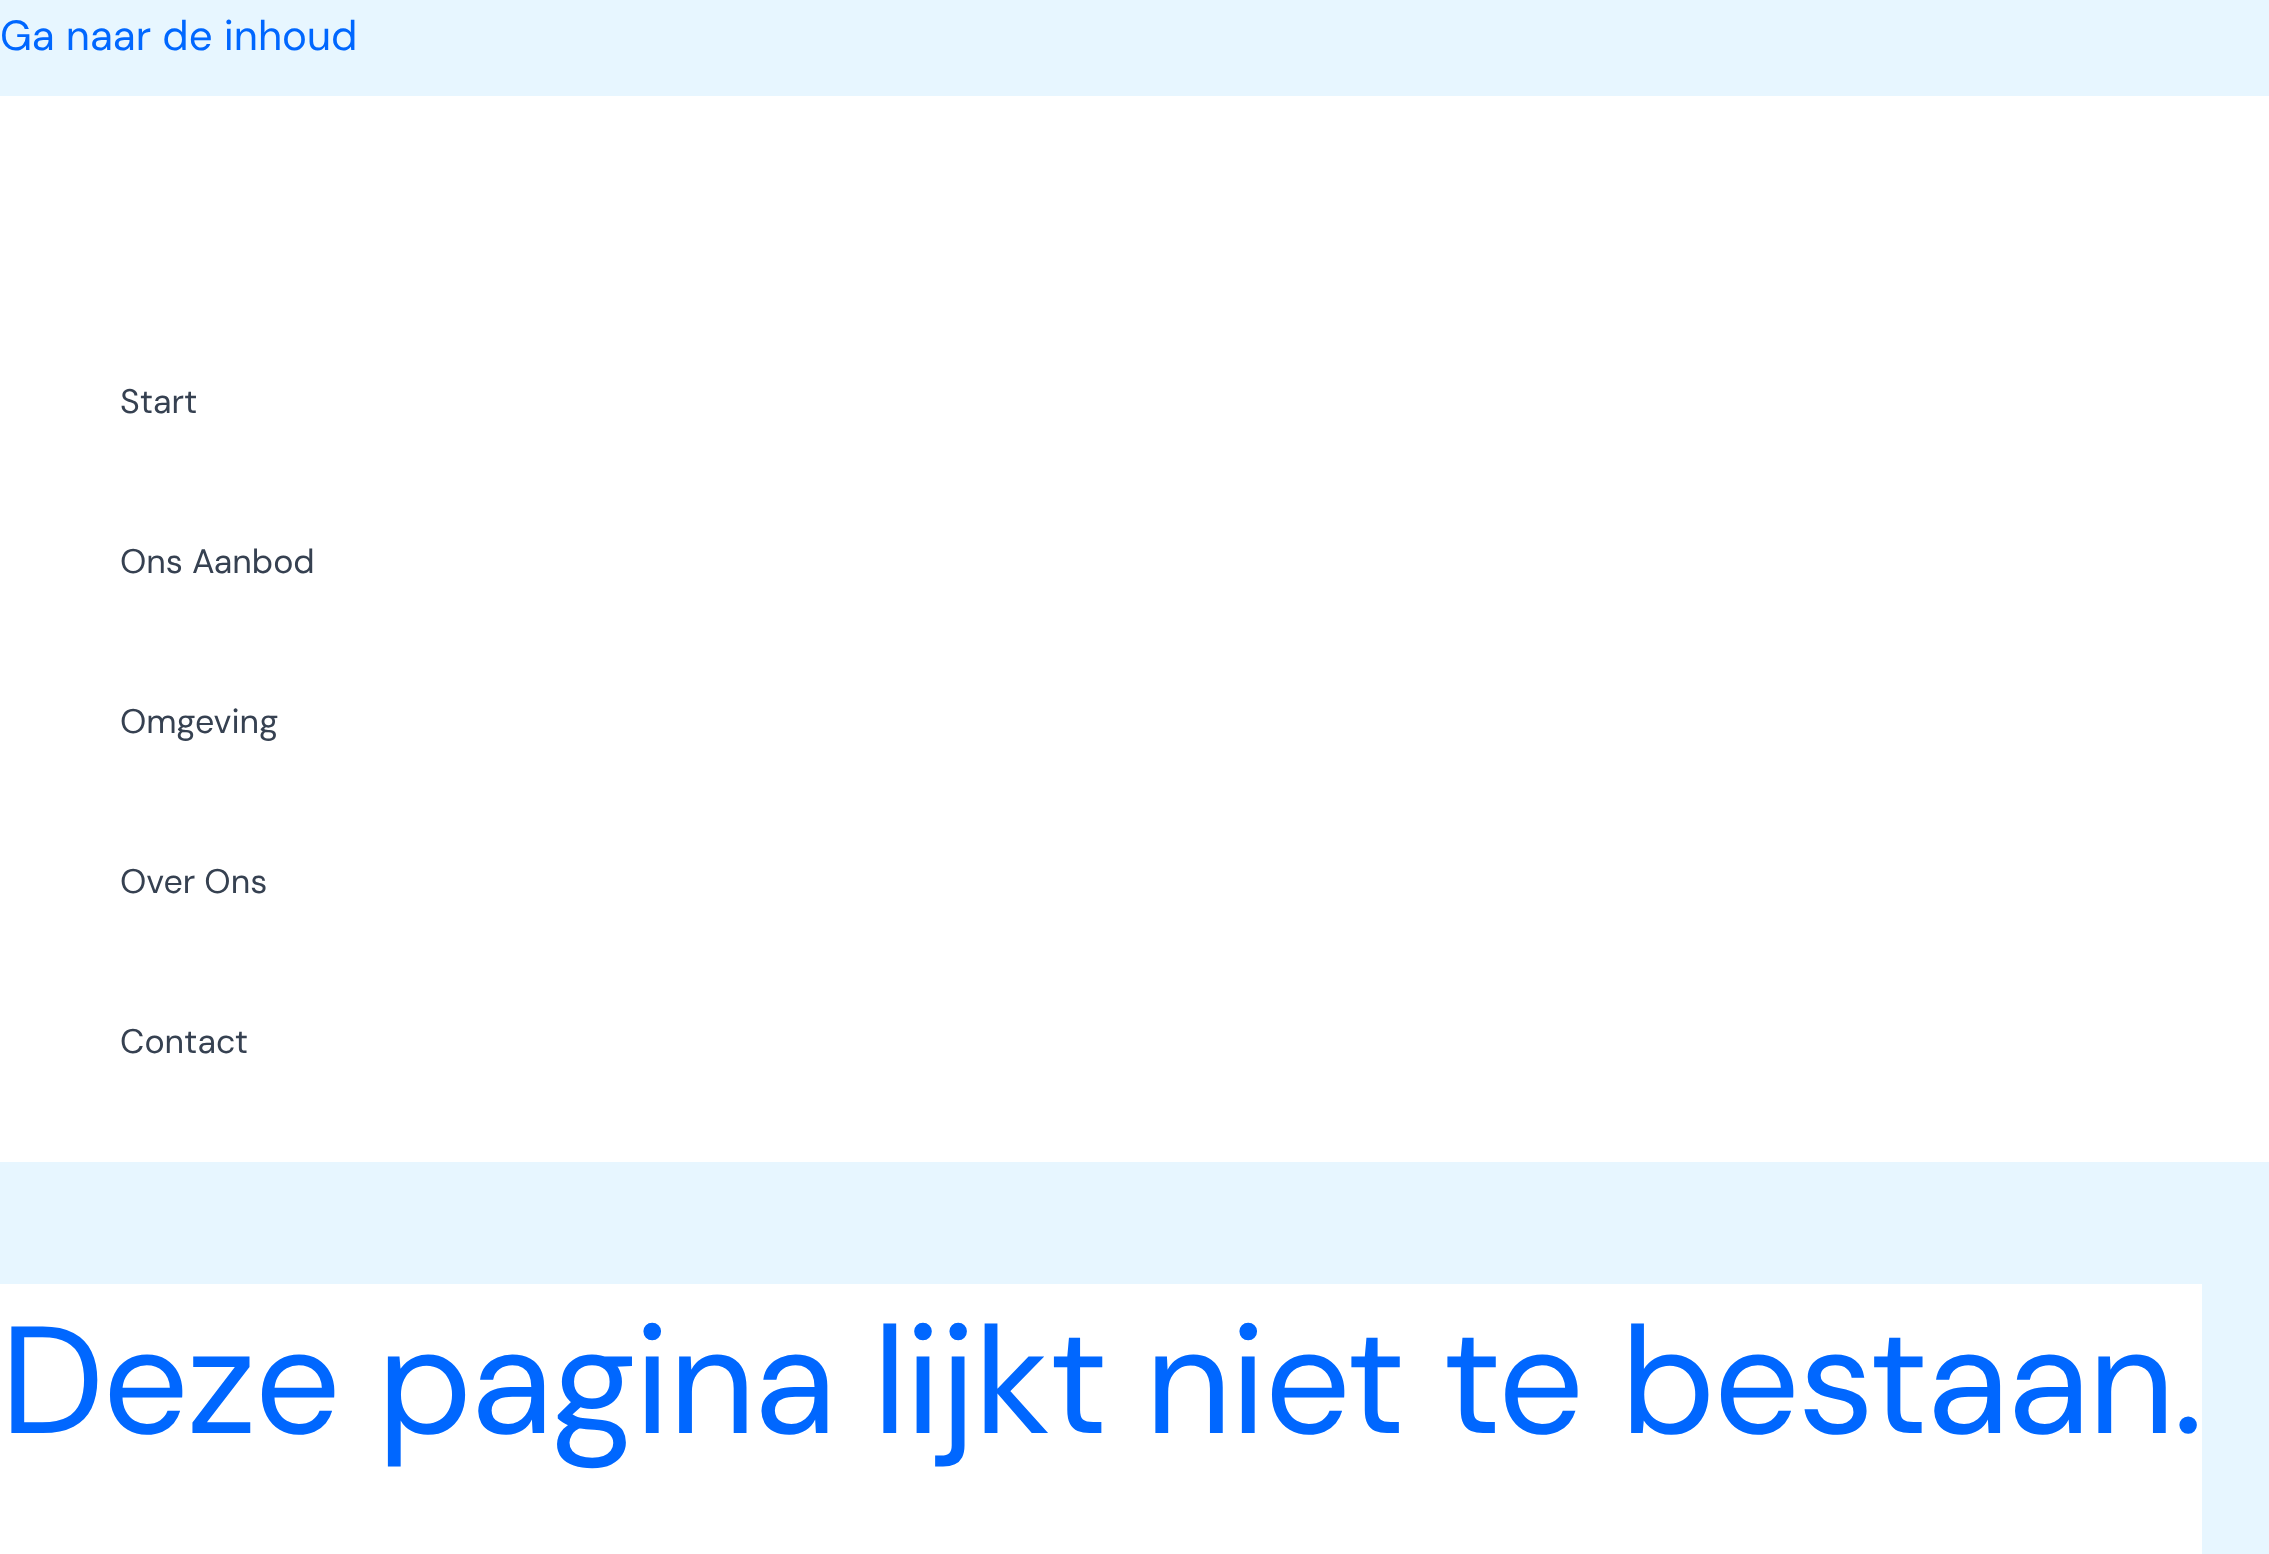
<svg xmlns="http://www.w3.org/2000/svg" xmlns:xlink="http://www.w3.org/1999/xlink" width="2269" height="1554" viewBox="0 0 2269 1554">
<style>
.cls-1{font:42px DM Sans;fill:#0067ff}
.cls-2{font:34px DM Sans;fill:#364151}
.cls-3{font:152px DM Sans;letter-spacing:-2px;fill:#0067ff}
</style>
<rect width="100%" height="100%" fill="#e7f6ff"/>
<rect fill="#ffffff" x="0" y="96" width="2269" height="1066"/>
<rect fill="#ffffff" x="0" y="1284" width="2202" height="270"/>
<text class="cls-1" x="0" y="50">Ga naar de inhoud</text>
<text class="cls-2" x="120" y="413">Start</text>
<text class="cls-2" x="120" y="573">Ons Aanbod</text>
<text class="cls-2" x="120" y="733">Omgeving</text>
<text class="cls-2" x="120" y="893">Over Ons</text>
<text class="cls-2" x="120" y="1053">Contact</text>
<text class="cls-3" x="0" y="1433">Deze pagina lijkt niet te bestaan.</text>
</svg>
